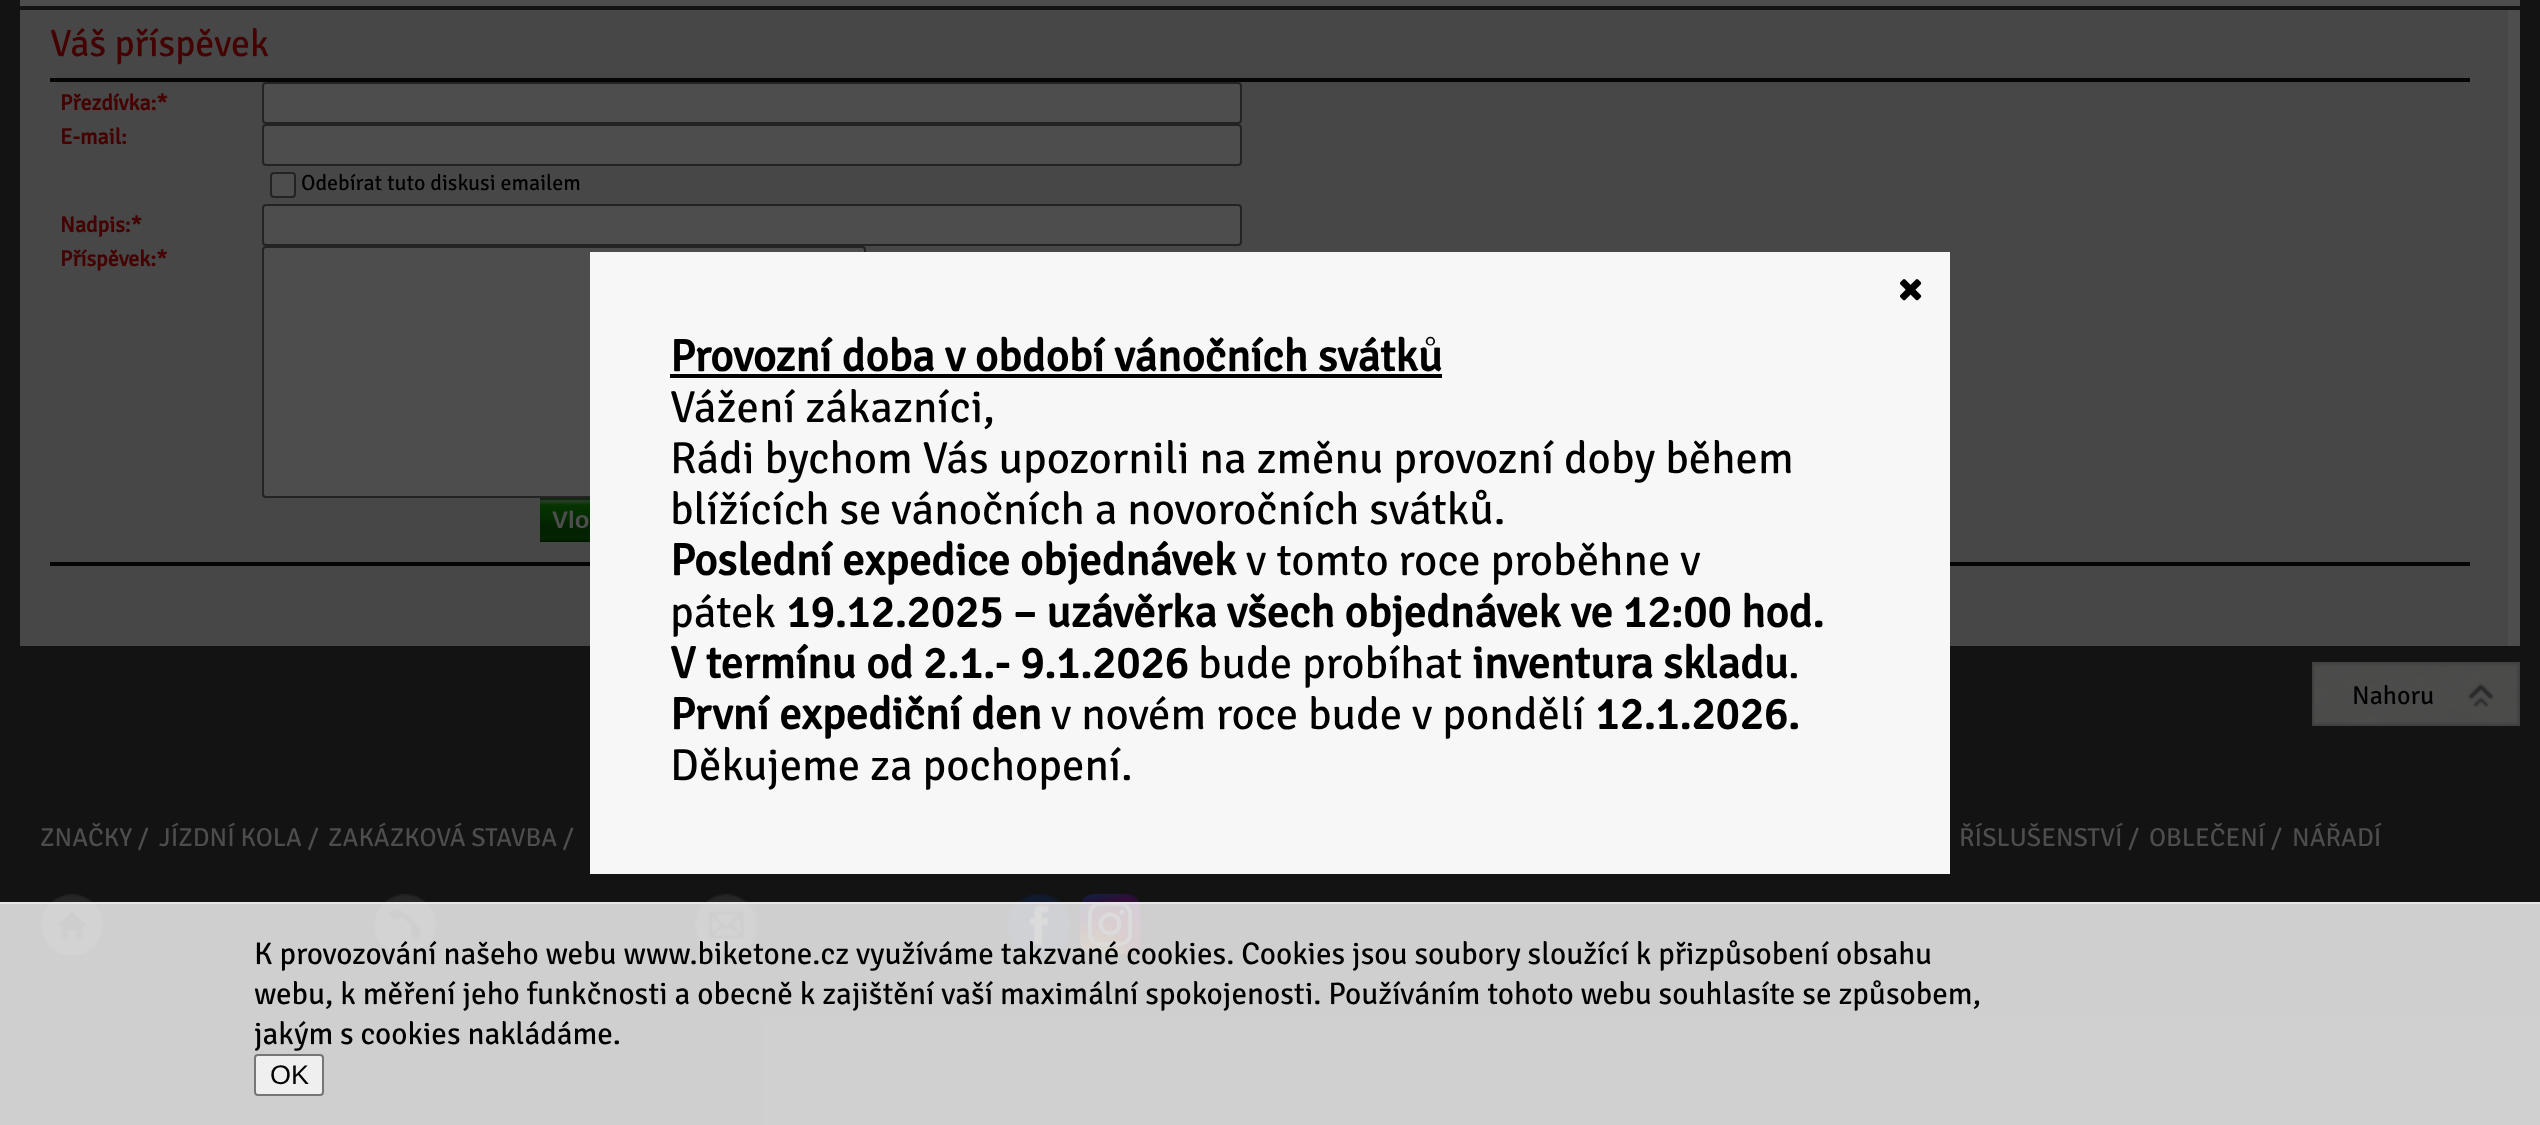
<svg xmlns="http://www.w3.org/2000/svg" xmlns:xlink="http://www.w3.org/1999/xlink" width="2540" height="1125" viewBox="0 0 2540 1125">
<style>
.cls-1{font:300 38px Signika Negative;fill:#450001}
.cls-2{font:bold 22px Signika Negative;fill:#450001}
.cls-3{font:300 22px Signika Negative;fill:#000000}
.cls-4{font:bold 24px Liberation Sans;fill:#4d4d4d}
.cls-5{font:bold 44.8px Signika Negative;fill:#000000}
.cls-6{font:300 44.8px Signika Negative;fill:#000000}
.cls-7{font:300 26px Signika Negative;fill:#000000}
.cls-8{font:300 26px Signika Negative;fill:#4d4d4d}
.cls-9{font:300 31.2px Signika Negative;fill:#000000}
.cls-10{font:27px Liberation Sans;fill:#000000}
</style>
<rect width="100%" height="100%" fill="#ffffff"/>
<image xlink:href="image0.png" x="0" y="0" width="2540" height="762"/>
<rect fill="#4d4d4d" x="20" y="0" width="2500" height="6"/>
<rect fill="#4d4d4d" x="2508" y="10" width="12" height="636"/>
<rect fill="#474747" x="20" y="10" width="2488" height="636"/>
<rect fill="#050505" x="50" y="78" width="2420" height="4"/>
<rect fill="#4d4d4d" stroke="#232323" stroke-width="2" x="263" y="83" width="978" height="40" rx="3"/>
<rect fill="#4d4d4d" stroke="#232323" stroke-width="2" x="263" y="125" width="978" height="40" rx="3"/>
<rect fill="#4d4d4d" stroke="#232323" stroke-width="2" x="271" y="173" width="24" height="24" rx="3"/>
<rect fill="#4d4d4d" stroke="#232323" stroke-width="2" x="263" y="205" width="978" height="40" rx="3"/>
<rect fill="#4d4d4d" stroke="#232323" stroke-width="2" x="263" y="247" width="602" height="250" rx="3"/>
<image xlink:href="image1.png" x="540" y="498" width="50" height="44"/>
<rect fill="#050505" x="50" y="562" width="2420" height="4"/>
<rect fill="#131313" x="0" y="762" width="2540" height="363"/>
<rect fill="#f7f7f7" x="590" y="252" width="1360" height="622"/>
<image xlink:href="image2.png" x="1900" y="279" width="22" height="22"/>
<rect fill="#000000" x="670" y="374" width="772" height="4"/>
<image xlink:href="image3.png" x="2312" y="662" width="208" height="64"/>
<image xlink:href="image4.png" x="40" y="894" width="64" height="62"/>
<image xlink:href="image5.png" x="374" y="894" width="62" height="62"/>
<image xlink:href="image6.png" x="694" y="894" width="64" height="62"/>
<image xlink:href="image7.png" x="1008" y="894" width="62" height="62"/>
<image xlink:href="image8.png" x="1080" y="894" width="60" height="60"/>
<rect fill="#ffffff" fill-opacity="0.8" x="0" y="904" width="2540" height="221"/>
<rect fill="#e6e6e6" x="0" y="902" width="2540" height="2"/>
<rect fill="#efefef" stroke="#767676" stroke-width="2" x="255" y="1055" width="68" height="40" rx="3"/>
<text class="cls-1" x="50" y="56">Váš příspěvek</text>
<text class="cls-2"><tspan x="60" y="110">Přezdívka:*</tspan><tspan x="60" y="144">E-mail:</tspan></text>
<text class="cls-3" x="301" y="190">Odebírat tuto diskusi emailem</text>
<text class="cls-2"><tspan x="60" y="232">Nadpis:*</tspan><tspan x="60" y="266">Příspěvek:*</tspan></text>
<text class="cls-4" x="552" y="528">Vlo</text>
<text class="cls-5" x="670" y="371">Provozní doba v období vánočních svátků</text>
<text class="cls-6"><tspan x="670" y="422">Vážení zákazníci,</tspan><tspan x="670" y="473">Rádi bychom Vás upozornili na změnu provozní doby během</tspan><tspan x="670" y="524">blížících se vánočních a novoročních svátků.</tspan></text>
<text class="cls-5" x="670" y="575">Poslední expedice objednávek</text>
<text class="cls-6" x="1246" y="575">v tomto roce proběhne v</text>
<text class="cls-6" x="670" y="627">pátek</text>
<text class="cls-5" x="786" y="627">19.12.2025 – uzávěrka všech objednávek ve 12:00 hod.</text>
<text class="cls-5" x="670" y="678">V termínu od 2.1.- 9.1.2026</text>
<text class="cls-6" x="1198" y="678">bude probíhat</text>
<text class="cls-5" x="1472" y="678">inventura skladu</text>
<text class="cls-6" x="1788" y="678">.</text>
<text class="cls-5" x="670" y="729">První expediční den</text>
<text class="cls-6" x="1051" y="729">v novém roce bude v pondělí</text>
<text class="cls-5" x="1595" y="729">12.1.2026.</text>
<text class="cls-6" x="670" y="780">Děkujeme za pochopení.</text>
<text class="cls-7" x="2352" y="704">Nahoru</text>
<text class="cls-8" x="40" y="846">ZNAČKY /</text>
<text class="cls-8" x="159" y="846">JÍZDNÍ KOLA /</text>
<text class="cls-8" x="328" y="846">ZAKÁZKOVÁ STAVBA /</text>
<text class="cls-8" x="1959" y="846">ŘÍSLUŠENSTVÍ /</text>
<text class="cls-8" x="2149" y="846">OBLEČENÍ /</text>
<text class="cls-8" x="2292" y="846">NÁŘADÍ</text>
<text class="cls-9"><tspan x="254" y="964">K provozování našeho webu www.biketone.cz využíváme takzvané cookies. Cookies jsou soubory sloužící k přizpůsobení obsahu</tspan><tspan x="254" y="1004">webu, k měření jeho funkčnosti a obecně k zajištění vaší maximální spokojenosti. Používáním tohoto webu souhlasíte se způsobem,</tspan><tspan x="254" y="1044">jakým s cookies nakládáme.</tspan></text>
<text class="cls-10" x="270" y="1084">OK</text>
</svg>
